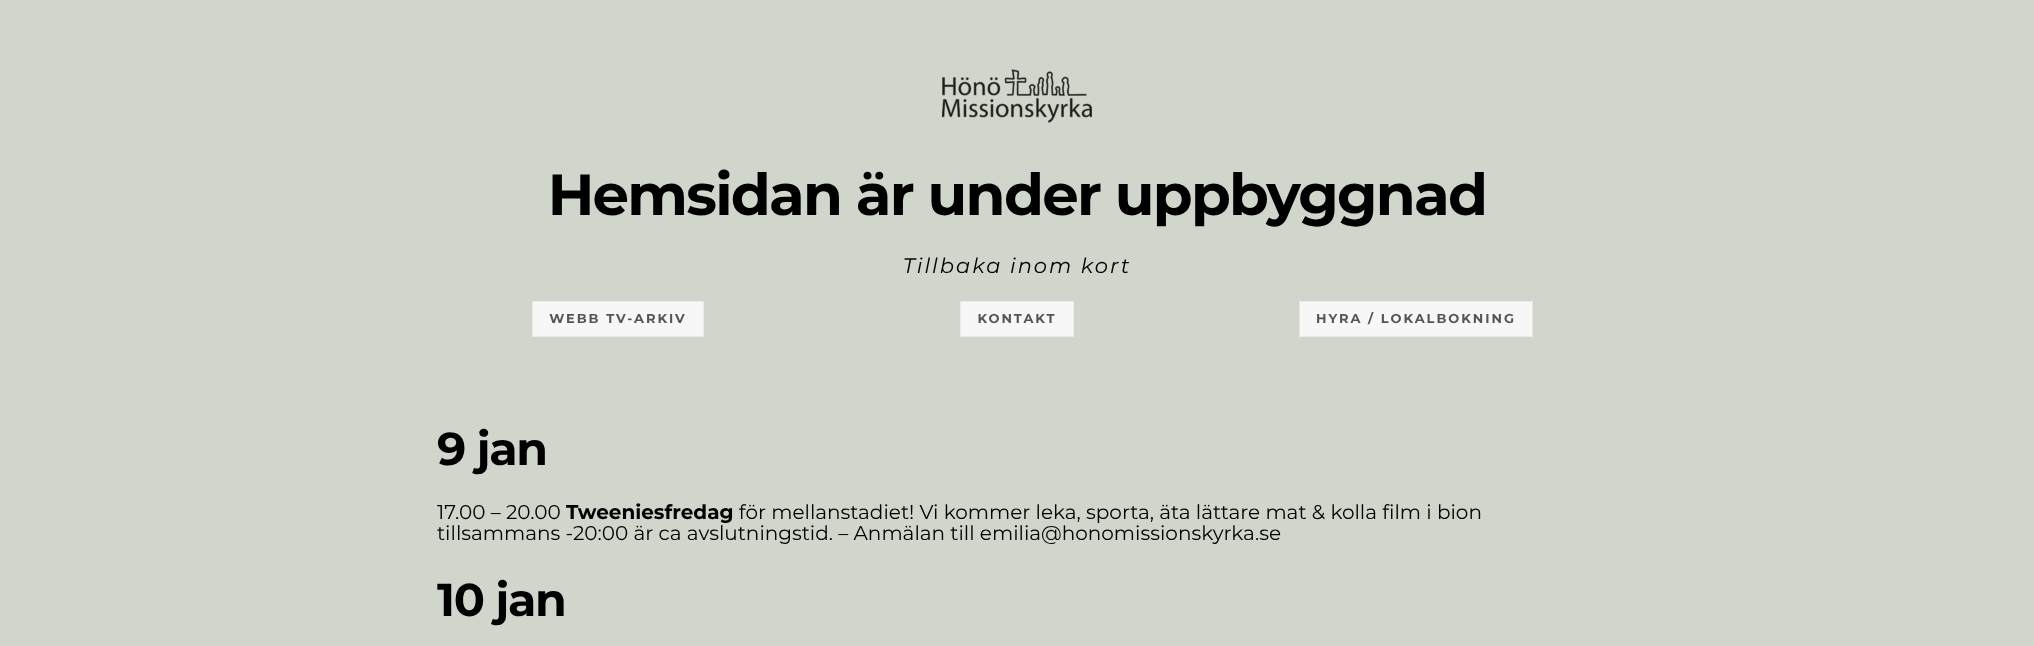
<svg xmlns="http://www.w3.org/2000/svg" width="2034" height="646">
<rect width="100%" height="100%" fill="#fff"/>
<image x="0" y="0" width="2034" height="646" href="media/1.png"/>
</svg>
